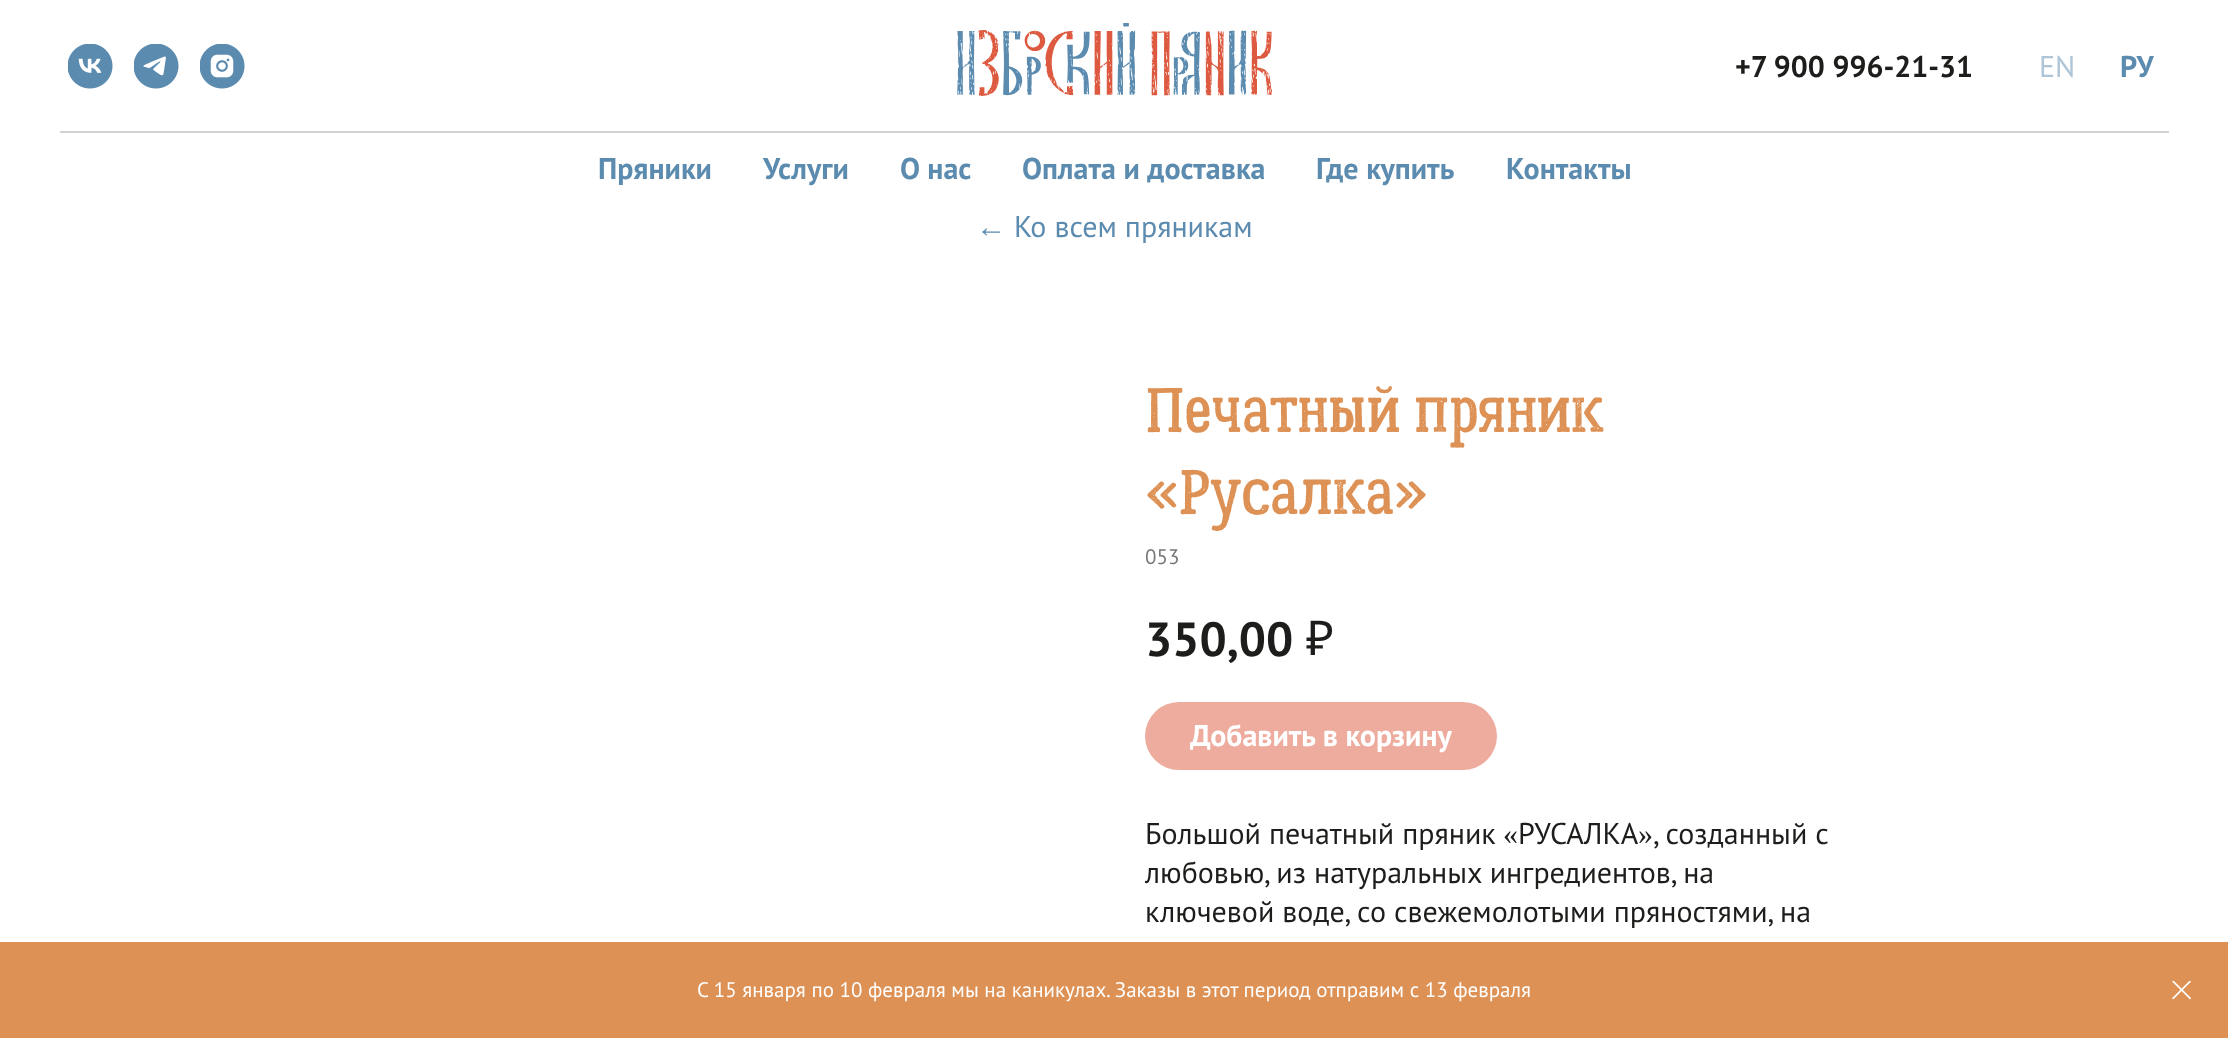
<svg xmlns="http://www.w3.org/2000/svg" width="2228" height="1038">
<rect width="100%" height="100%" fill="#fff"/>
<image x="957" y="23" width="315" height="73" href="media/1.png"/>
<image x="68" y="44" width="45" height="45" href="media/2.png"/>
<image x="134" y="44" width="45" height="45" href="media/3.png"/>
<image x="200" y="44" width="45" height="45" href="media/4.png"/>
<text x="1735" y="77" style="font-family:PT Sans;font-size:30px;font-weight:bold;fill:#1d1d1b">+7 900 996-21-31</text>
<text x="2039" y="77" style="font-family:PT Sans;font-size:30px;fill:#aec5d8">EN</text>
<text x="2120" y="77" style="font-family:PT Sans;font-size:30px;font-weight:bold;fill:#5c8bb0">РУ</text>
<rect x="60" y="131" width="2109" height="2" fill="#d2d2d1"/>
<text x="598" y="179" style="font-family:PT Sans;font-size:30px;font-weight:bold;fill:#5c8bb0">Пряники</text>
<text x="763" y="179" style="font-family:PT Sans;font-size:30px;font-weight:bold;fill:#5c8bb0">Услуги</text>
<text x="900" y="179" style="font-family:PT Sans;font-size:30px;font-weight:bold;fill:#5c8bb0">О нас</text>
<text x="1022" y="179" style="font-family:PT Sans;font-size:30px;font-weight:bold;fill:#5c8bb0">Оплата и доставка</text>
<text x="1316" y="179" style="font-family:PT Sans;font-size:30px;font-weight:bold;fill:#5c8bb0">Где купить</text>
<text x="1506" y="179" style="font-family:PT Sans;font-size:30px;font-weight:bold;fill:#5c8bb0">Контакты</text>
<text x="976" y="237" style="font-family:Liberation Sans;font-size:30px;fill:#5c8bb0">←</text>
<text x="1014" y="237" style="font-family:PT Sans;font-size:30px;fill:#5c8bb0">Ко всем пряникам</text>
<text x="1145" y="432" style="font-family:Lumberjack;font-size:63px;fill:#dd9155">Печатный пряник</text>
<text x="1145" y="514" style="font-family:Lumberjack;font-size:63px;fill:#dd9155">«Русалка»</text>
<text x="1145" y="564" style="font-family:PT Sans;font-size:21px;fill:#777">053</text>
<text x="1145" y="656" style="font-family:PT Sans;font-size:48px;font-weight:bold;fill:#1d1d1b">350,00</text>
<text x="1306" y="655" style="font-family:Noto Sans;font-size:48px;fill:#1d1d1b">₽</text>
<rect x="1145" y="702" width="352" height="68" rx="34" fill="#eeac9f"/>
<text x="1190" y="746" style="font-family:PT Sans;font-size:30px;font-weight:bold;fill:#fff">Добавить в корзину</text>
<text x="1145" y="844" style="font-family:PT Sans;font-size:30px;fill:#1d1d1b">Большой печатный пряник</text>
<text x="1503" y="844" style="font-family:Liberation Serif;font-size:30px;fill:#1d1d1b">«</text>
<text x="1518" y="844" style="font-family:PT Sans;font-size:30px;fill:#1d1d1b">РУСАЛКА</text>
<text x="1638" y="844" style="font-family:Liberation Serif;font-size:30px;fill:#1d1d1b">»</text>
<text x="1653" y="844" style="font-family:PT Sans;font-size:30px;fill:#1d1d1b">, созданный с</text>
<text x="1145" y="883" style="font-family:PT Sans;font-size:30px;fill:#1d1d1b">любовью, из натуральных ингредиентов, на</text>
<text x="1145" y="922" style="font-family:PT Sans;font-size:30px;fill:#1d1d1b">ключевой воде, со свежемолотыми пряностями, на</text>
<rect y="942" width="2228" height="96" fill="#dd9155"/>
<text x="697" y="997" style="font-family:PT Sans;font-size:21px;fill:#fff">С 15 января по 10 февраля мы на каникулах. Заказы в этот период отправим с 13 февраля</text>
<image x="2172" y="981" width="20" height="19" href="media/5.png"/>
</svg>
